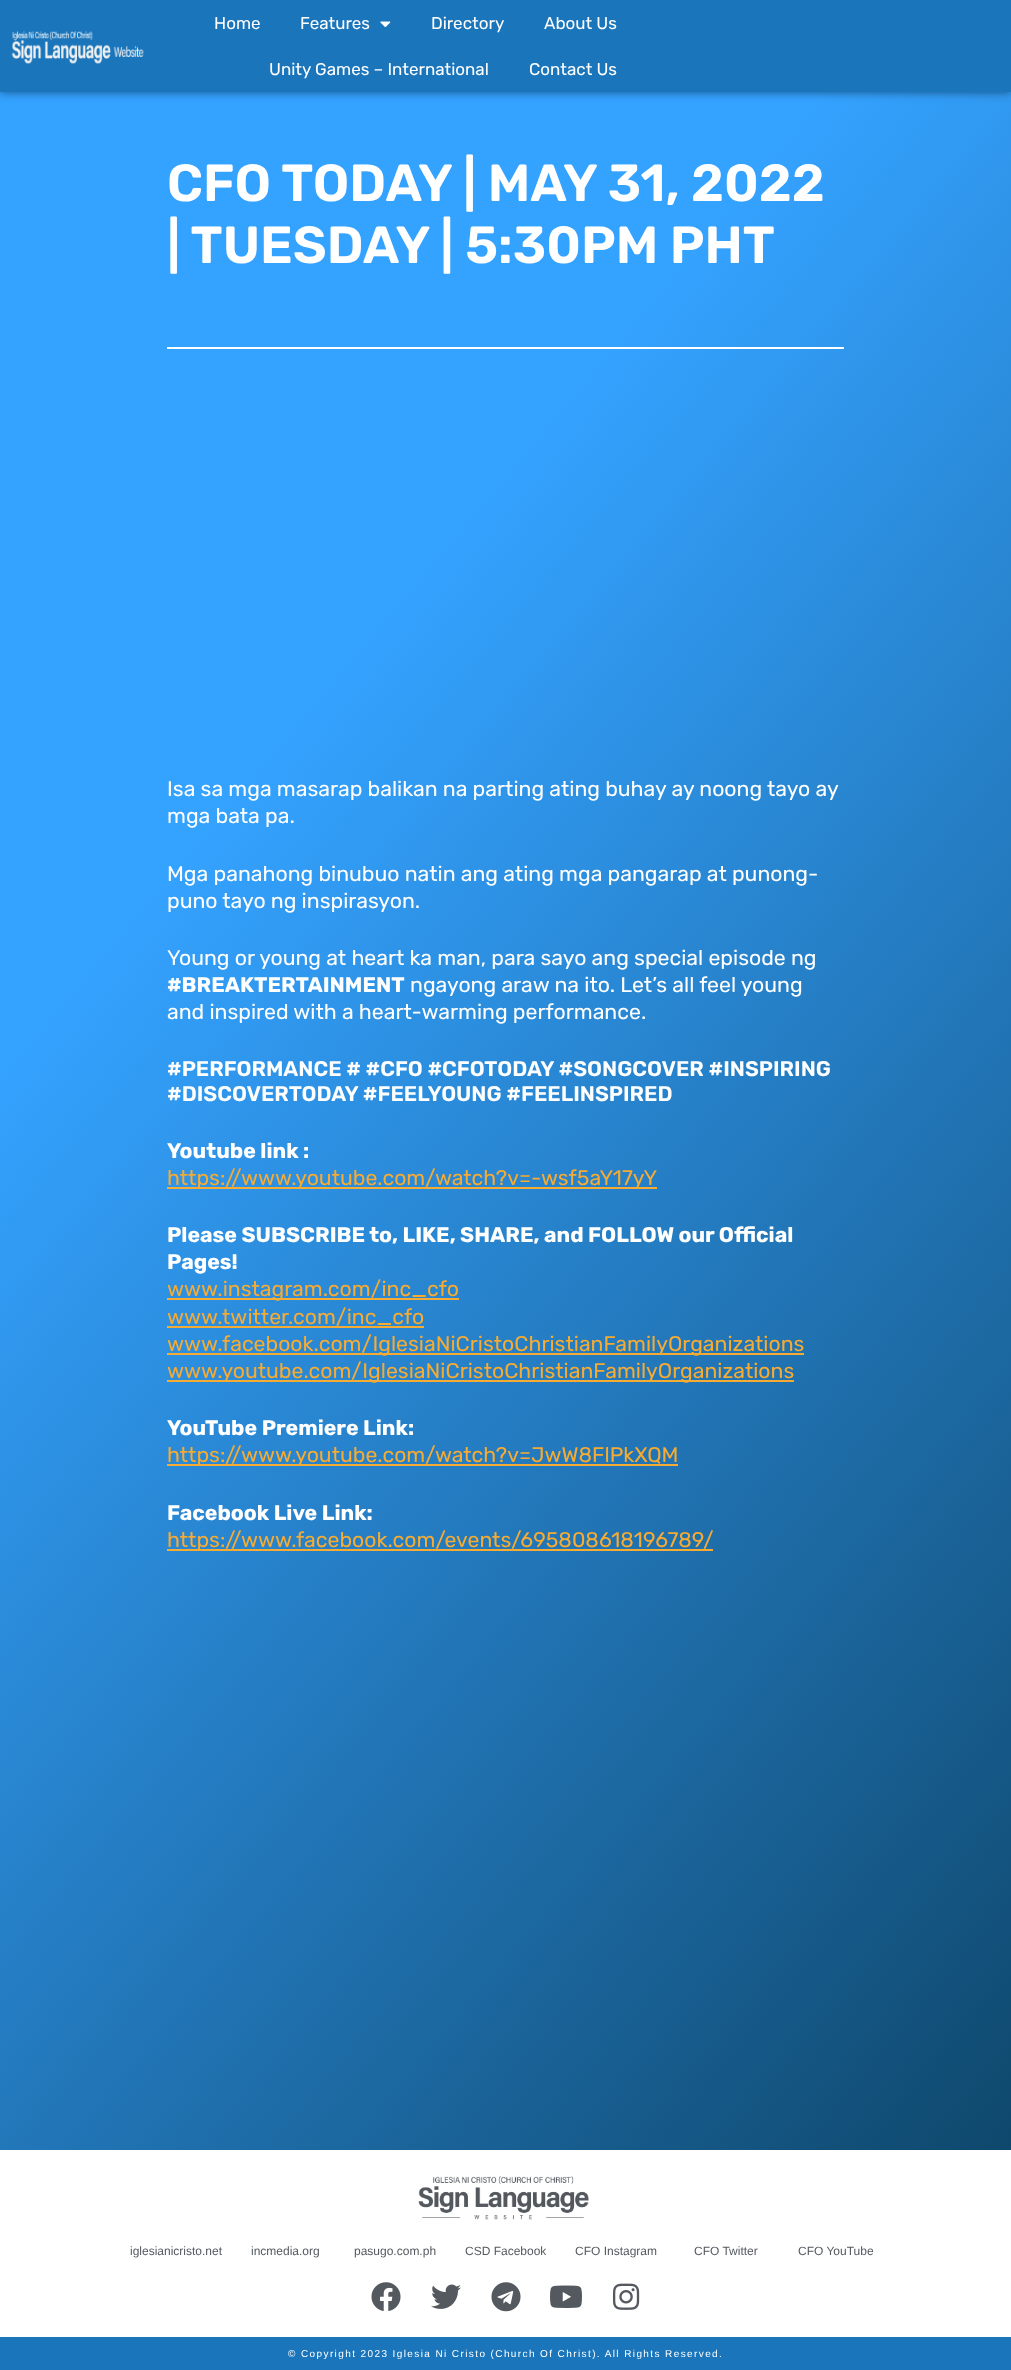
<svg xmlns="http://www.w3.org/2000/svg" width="1011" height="2370">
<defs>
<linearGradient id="g1" gradientUnits="userSpaceOnUse" x1="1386" y1="1924" x2="-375" y2="446"><stop offset="0" stop-color="#0b3f5e"/><stop offset="0.7" stop-color="#34a2ff"/></linearGradient>
</defs>
<rect width="100%" height="100%" fill="#fff"/>
<rect y="92" width="1011" height="2058" fill="url(#g1)"/>
<rect width="1011" height="92" fill="#00000080" filter="blur(5px)"/>
<rect width="1011" height="92" fill="#1a75bb"/>
<image x="11" y="31" width="133" height="33" href="media/1.png"/>
<text x="214" y="29" style="font-family:Rubik;font-size:17px;fill:#fff">Home</text>
<text x="300" y="29" style="font-family:Rubik;font-size:17px;fill:#fff">Features</text>
<image x="380" y="21" width="11" height="7" href="media/2.png"/>
<text x="431" y="29" style="font-family:Rubik;font-size:17px;fill:#fff">Directory</text>
<text x="544" y="29" style="font-family:Rubik;font-size:17px;fill:#fff">About Us</text>
<text x="269" y="75" style="font-family:Rubik;font-size:17px;fill:#fff">Unity Games – International</text>
<text x="529" y="75" style="font-family:Rubik;font-size:17px;fill:#fff">Contact Us</text>
<text x="167" y="201" style="font-family:Rubik;font-size:52px;font-weight:600;fill:#fff">CFO TODAY | MAY 31, 2022</text>
<text x="167" y="263" style="font-family:Rubik;font-size:52px;font-weight:600;fill:#fff">| TUESDAY | 5:30PM PHT</text>
<rect x="167" y="347" width="677" height="2" fill="#fff"/>
<text x="167" y="796" style="font-family:Rubik;font-size:21.25px;fill:#fff">Isa sa mga masarap balikan na parting ating buhay ay noong tayo ay</text>
<text x="167" y="823" style="font-family:Rubik;font-size:21.25px;fill:#fff">mga bata pa.</text>
<text x="167" y="881" style="font-family:Rubik;font-size:21.25px;fill:#fff">Mga panahong binubuo natin ang ating mga pangarap at punong-</text>
<text x="167" y="908" style="font-family:Rubik;font-size:21.25px;fill:#fff">puno tayo ng inspirasyon.</text>
<text x="167" y="965" style="font-family:Rubik;font-size:21.25px;fill:#fff">Young or young at heart ka man, para sayo ang special episode ng</text>
<text x="167" y="992" style="font-family:Rubik;font-size:21.25px;font-weight:bold;fill:#fff">#BREAKTERTAINMENT</text>
<text x="410" y="992" style="font-family:Rubik;font-size:21.25px;fill:#fff">ngayong araw na ito. Let’s all feel young</text>
<text x="167" y="1019" style="font-family:Rubik;font-size:21.25px;fill:#fff">and inspired with a heart-warming performance.</text>
<text x="167" y="1076" style="font-family:Rubik;font-size:21.25px;font-weight:600;fill:#fff">#PERFORMANCE # #CFO #CFOTODAY #SONGCOVER #INSPIRING</text>
<text x="167" y="1101" style="font-family:Rubik;font-size:21.25px;font-weight:600;fill:#fff">#DISCOVERTODAY #FEELYOUNG #FEELINSPIRED</text>
<text x="167" y="1158" style="font-family:Rubik;font-size:21.25px;font-weight:bold;fill:#fff">Youtube link :</text>
<rect x="167" y="1187" width="490" height="2" fill="#f6ab32"/>
<text x="167" y="1185" style="font-family:Rubik;font-size:21.25px;fill:#f6ab32">https://www.youtube.com/watch?v=-wsf5aY17yY</text>
<text x="167" y="1242" style="font-family:Rubik;font-size:21.25px;font-weight:bold;fill:#fff">Please SUBSCRIBE to, LIKE, SHARE, and FOLLOW our Official</text>
<text x="167" y="1269" style="font-family:Rubik;font-size:21.25px;font-weight:bold;fill:#fff">Pages!</text>
<rect x="167" y="1298" width="292" height="2" fill="#f6ab32"/>
<text x="167" y="1296" style="font-family:Rubik;font-size:21.25px;fill:#f6ab32">www.instagram.com/inc_cfo</text>
<text x="167" y="1324" style="font-family:Rubik;font-size:21.25px;fill:#f6ab32">www.twitter.com/inc_cfo</text>
<rect x="167" y="1326" width="257" height="2" fill="#f6ab32"/>
<rect x="167" y="1353" width="637" height="2" fill="#f6ab32"/>
<text x="167" y="1351" style="font-family:Rubik;font-size:21.25px;fill:#f6ab32">www.facebook.com/IglesiaNiCristoChristianFamilyOrganizations</text>
<rect x="167" y="1380" width="627" height="2" fill="#f6ab32"/>
<text x="167" y="1378" style="font-family:Rubik;font-size:21.25px;fill:#f6ab32">www.youtube.com/IglesiaNiCristoChristianFamilyOrganizations</text>
<text x="167" y="1435" style="font-family:Rubik;font-size:21.25px;font-weight:bold;fill:#fff">YouTube Premiere Link:</text>
<rect x="167" y="1464" width="511" height="2" fill="#f6ab32"/>
<text x="167" y="1462" style="font-family:Rubik;font-size:21.25px;fill:#f6ab32">https://www.youtube.com/watch?v=JwW8FlPkXQM</text>
<text x="167" y="1520" style="font-family:Rubik;font-size:21.25px;font-weight:bold;fill:#fff">Facebook Live Link:</text>
<rect x="167" y="1549" width="546" height="2" fill="#f6ab32"/>
<text x="167" y="1547" style="font-family:Rubik;font-size:21.25px;fill:#f6ab32">https://www.facebook.com/events/695808618196789/</text>
<image x="418" y="2176" width="171" height="44" href="media/3.png"/>
<text x="130" y="2255" style="font-family:Liberation Sans;font-size:12px;fill:#54595f">iglesianicristo.net</text>
<text x="251" y="2255" style="font-family:Liberation Sans;font-size:12px;fill:#54595f">incmedia.org</text>
<text x="354" y="2255" style="font-family:Liberation Sans;font-size:12px;fill:#54595f">pasugo.com.ph</text>
<text x="465" y="2255" style="font-family:Liberation Sans;font-size:12px;fill:#54595f">CSD Facebook</text>
<text x="575" y="2255" style="font-family:Liberation Sans;font-size:12px;fill:#54595f">CFO Instagram</text>
<text x="694" y="2255" style="font-family:Liberation Sans;font-size:12px;fill:#54595f">CFO Twitter</text>
<text x="798" y="2255" style="font-family:Liberation Sans;font-size:12px;fill:#54595f">CFO YouTube</text>
<image x="371" y="2282" width="30" height="29" href="media/4.png"/>
<image x="431" y="2284" width="30" height="25" href="media/5.png"/>
<image x="491" y="2282" width="30" height="30" href="media/6.png"/>
<image x="550" y="2285" width="32" height="23" href="media/7.png"/>
<image x="612" y="2283" width="28" height="27" href="media/8.png"/>
<rect y="2337" width="1011" height="33" fill="#1a75bb"/>
<text x="288" y="2357" style="font-family:Liberation Sans;font-size:10px;letter-spacing:1.4px;fill:#fff">© Copyright 2023 Iglesia Ni Cristo (Church Of Christ). All Rights Reserved.</text>
</svg>
